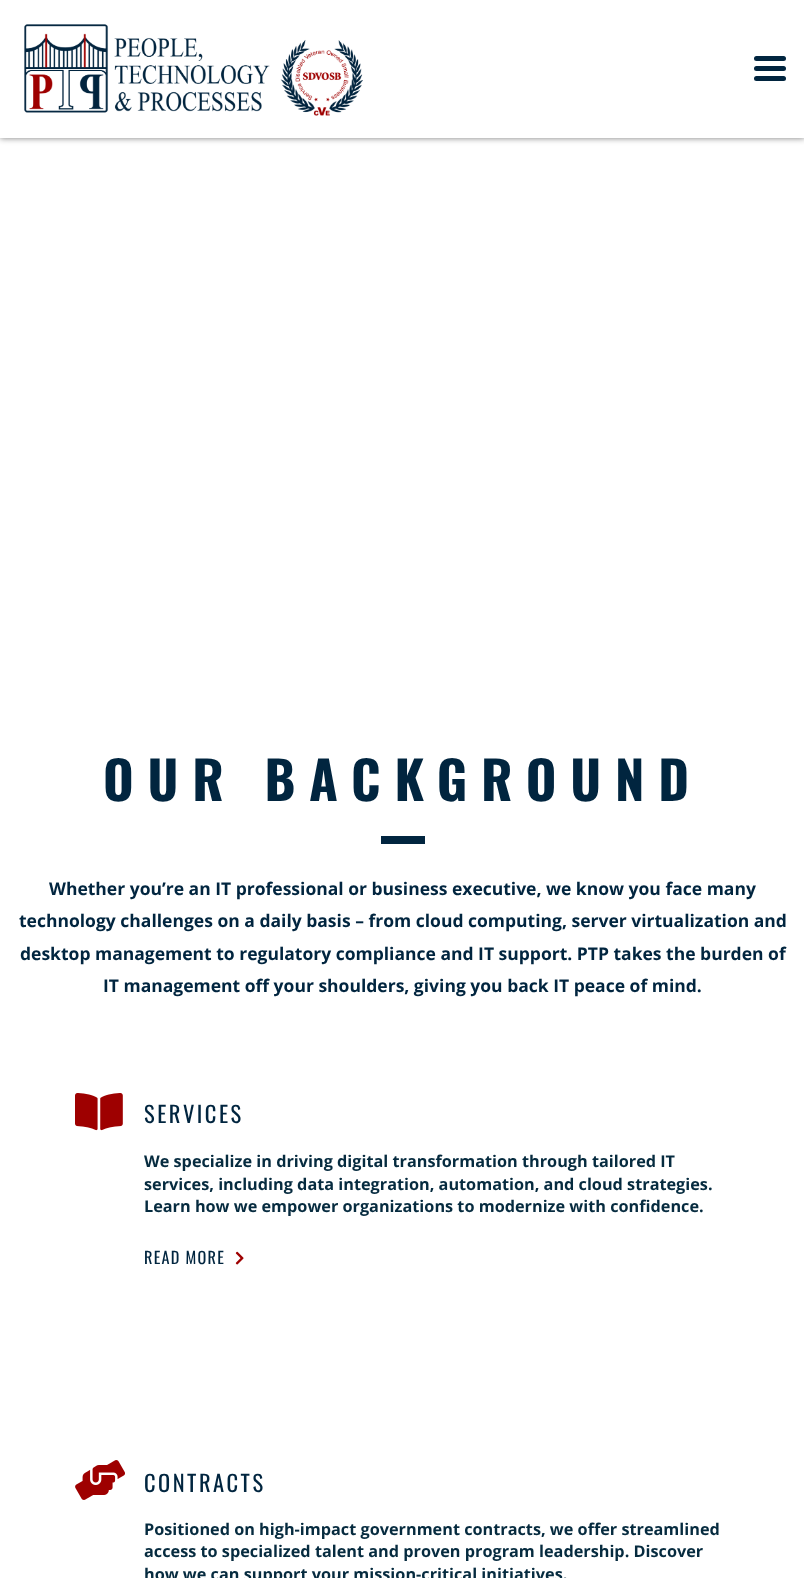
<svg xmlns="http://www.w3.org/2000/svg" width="804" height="1578">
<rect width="100%" height="100%" fill="#fff"/>
<rect width="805" height="138" fill="#00000085" filter="blur(3px)"/>
<rect width="804" height="138" fill="#fff"/>
<image x="24" y="24" width="339" height="92" href="media/1.png"/>
<rect x="754" y="66" width="32" height="5" rx="2.5" fill="#01253f"/>
<rect x="754" y="56" width="32" height="5" rx="2.5" fill="#01253f"/>
<rect x="754" y="76" width="32" height="5" rx="2.5" fill="#01253f"/>
<text x="103" y="801" style="font-family:Oswald;font-size:52.5px;font-weight:bold;letter-spacing:13.75px;fill:#01253f">OUR BACKGROUND</text>
<rect x="381" y="836" width="44" height="8" fill="#01253f"/>
<text x="49" y="895" style="font-family:Open Sans;font-size:17.5px;font-weight:bold;fill:#01253f">Whether you’re an IT professional or business executive, we know you face many</text>
<text x="19" y="927" style="font-family:Open Sans;font-size:17.5px;font-weight:bold;fill:#01253f">technology challenges on a daily basis – from cloud computing, server virtualization and</text>
<text x="20" y="960" style="font-family:Open Sans;font-size:17.5px;font-weight:bold;fill:#01253f">desktop management to regulatory compliance and IT support. PTP takes the burden of</text>
<text x="103" y="992" style="font-family:Open Sans;font-size:17.5px;font-weight:bold;fill:#01253f">IT management off your shoulders, giving you back IT peace of mind.</text>
<image x="75" y="1093" width="48" height="38" href="media/2.png"/>
<text x="144" y="1123" style="font-family:Oswald;font-size:22.5px;letter-spacing:2.5px;fill:#01253f">SERVICES</text>
<text x="144" y="1167" style="font-family:Open Sans;font-size:16.25px;font-weight:bold;fill:#062b3f">We specialize in driving digital transformation through tailored IT</text>
<text x="144" y="1190" style="font-family:Open Sans;font-size:16.25px;font-weight:bold;fill:#062b3f">services, including data integration, automation, and cloud strategies.</text>
<text x="144" y="1212" style="font-family:Open Sans;font-size:16.25px;font-weight:bold;fill:#062b3f">Learn how we empower organizations to modernize with confidence.</text>
<text x="144" y="1264" style="font-family:Oswald;font-size:16.25px;letter-spacing:1.25px;fill:#01253f">READ MORE</text>
<image x="235" y="1251" width="9" height="14" href="media/3.png"/>
<image x="75" y="1460" width="50" height="40" href="media/4.png"/>
<text x="144" y="1492" style="font-family:Oswald;font-size:22.5px;letter-spacing:2.5px;fill:#01253f">CONTRACTS</text>
<text x="144" y="1535" style="font-family:Open Sans;font-size:16.25px;font-weight:bold;fill:#062b3f">Positioned on high-impact government contracts, we offer streamlined</text>
<text x="144" y="1557" style="font-family:Open Sans;font-size:16.25px;font-weight:bold;fill:#062b3f">access to specialized talent and proven program leadership. Discover</text>
<text x="144" y="1580" style="font-family:Open Sans;font-size:16.25px;font-weight:bold;fill:#062b3f">how we can support your mission-critical initiatives.</text>
</svg>
